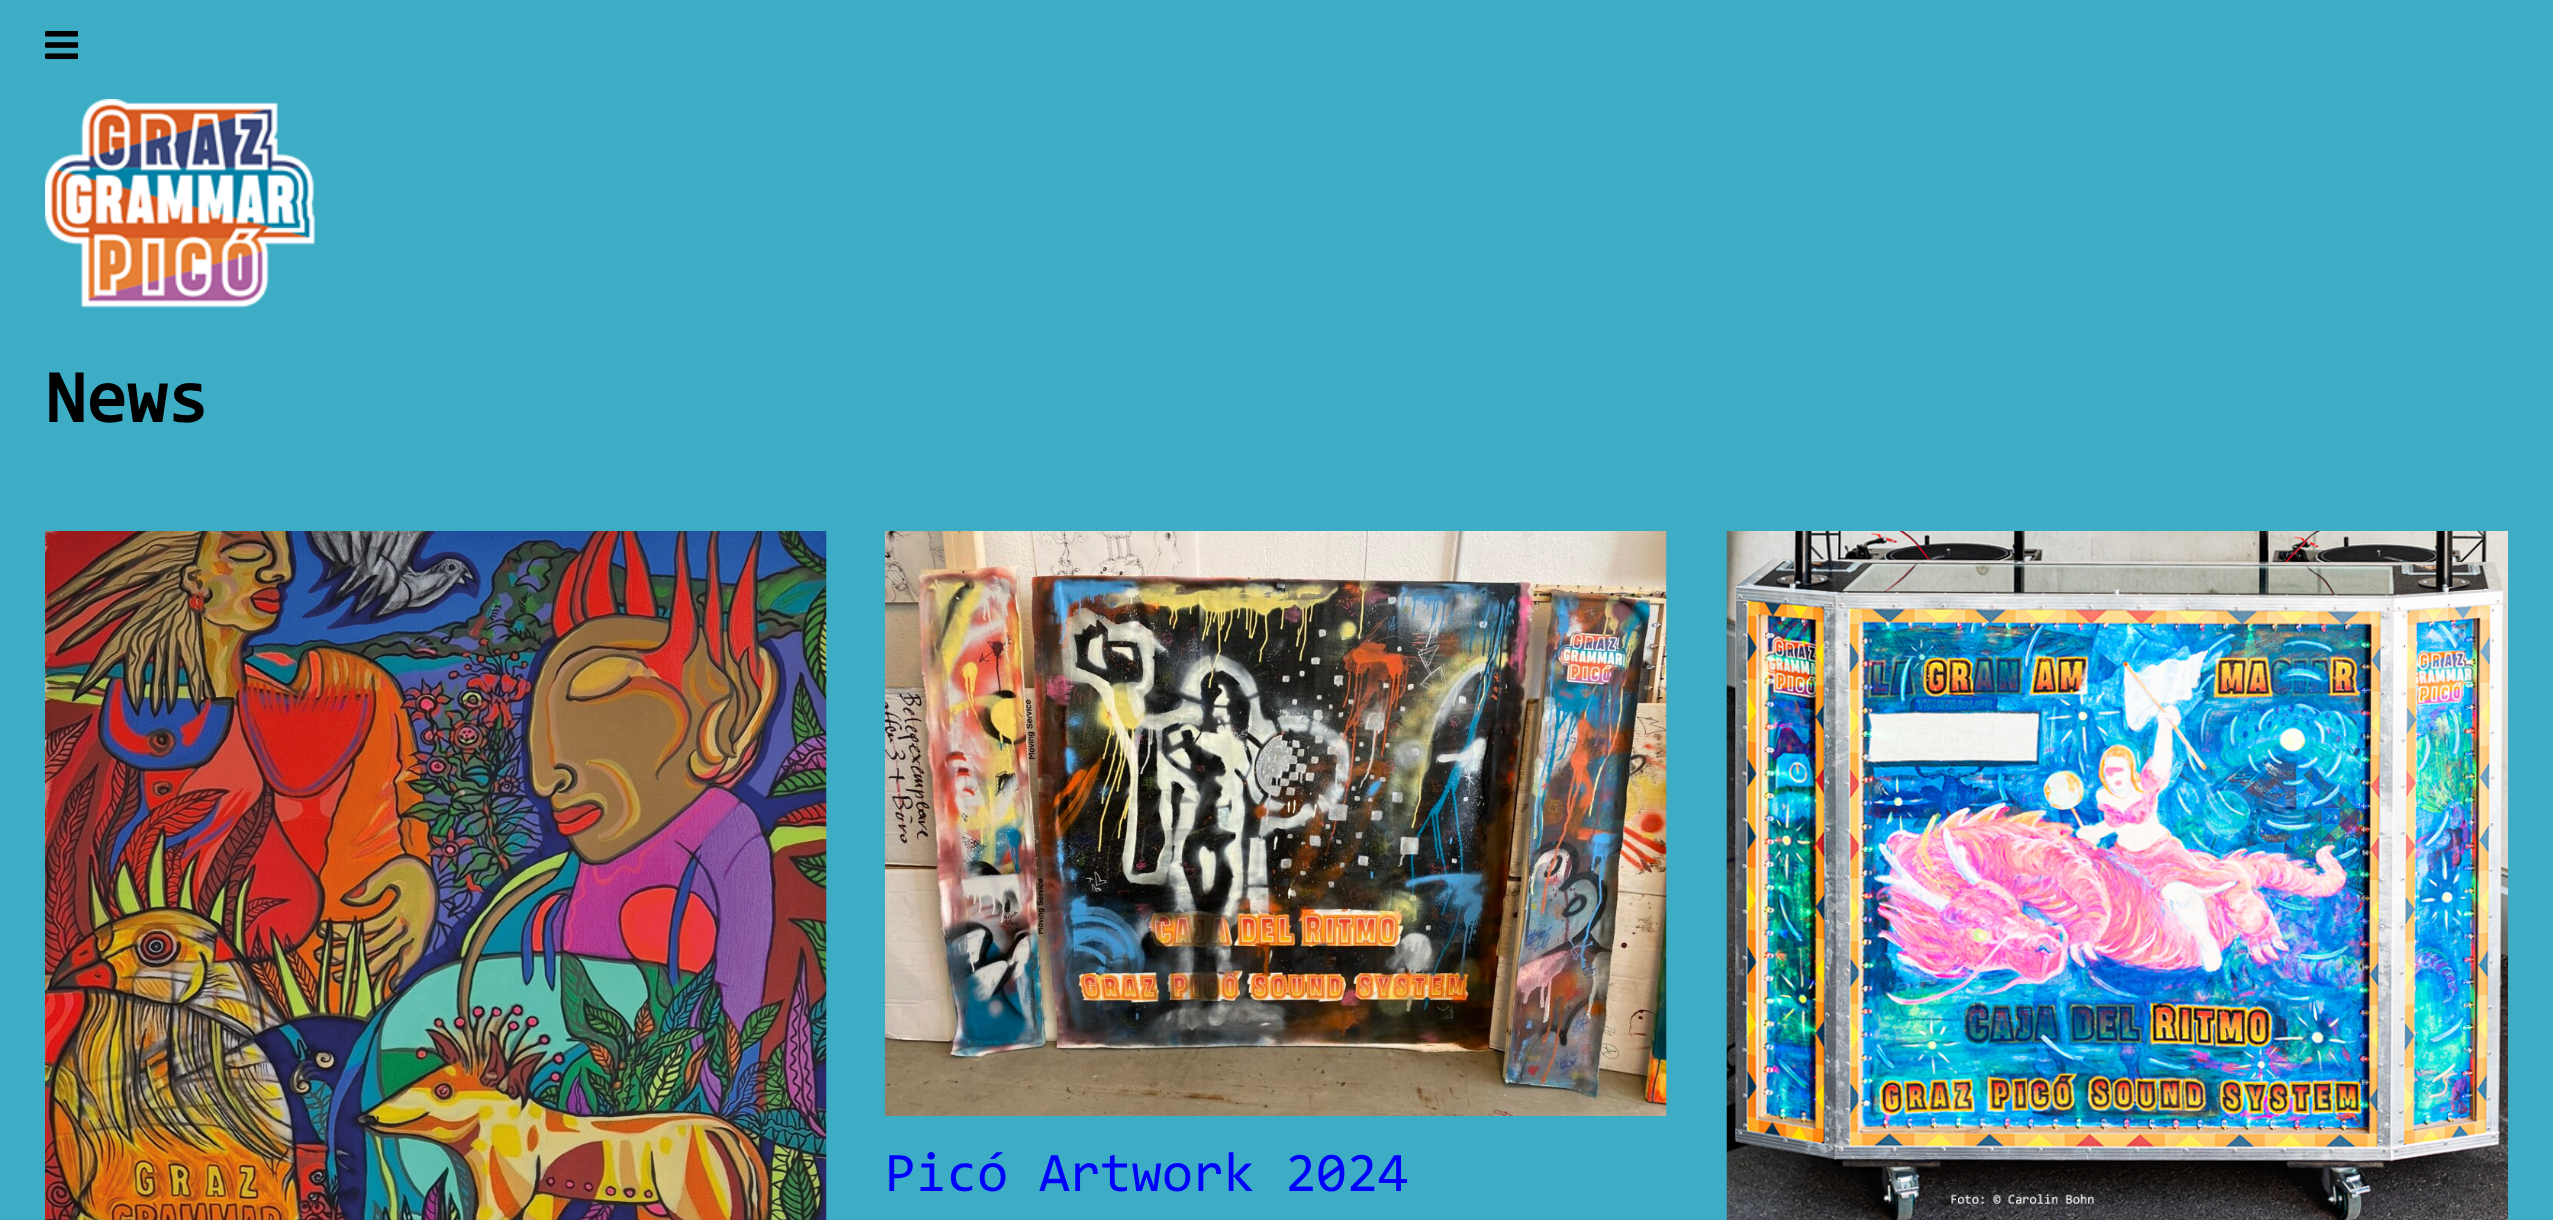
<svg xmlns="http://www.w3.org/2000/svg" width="2553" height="1220">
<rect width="100%" height="100%" fill="#3dadc6"/>
<image x="45" y="31" width="33" height="28" href="media/1.png"/>
<image x="45" y="99" width="270" height="209" href="media/2.png"/>
<text x="45" y="422" style="font-family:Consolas;font-size:74px;font-weight:bold;fill:#000">News</text>
<image x="45" y="531" width="782" height="689" href="media/3.png"/>
<image x="885" y="531" width="782" height="585" href="media/4.png"/>
<text x="885" y="1191" style="font-family:Consolas;font-size:56px;fill:#00f">Picó Artwork 2024</text>
<image x="1726" y="531" width="782" height="689" href="media/5.png"/>
</svg>
